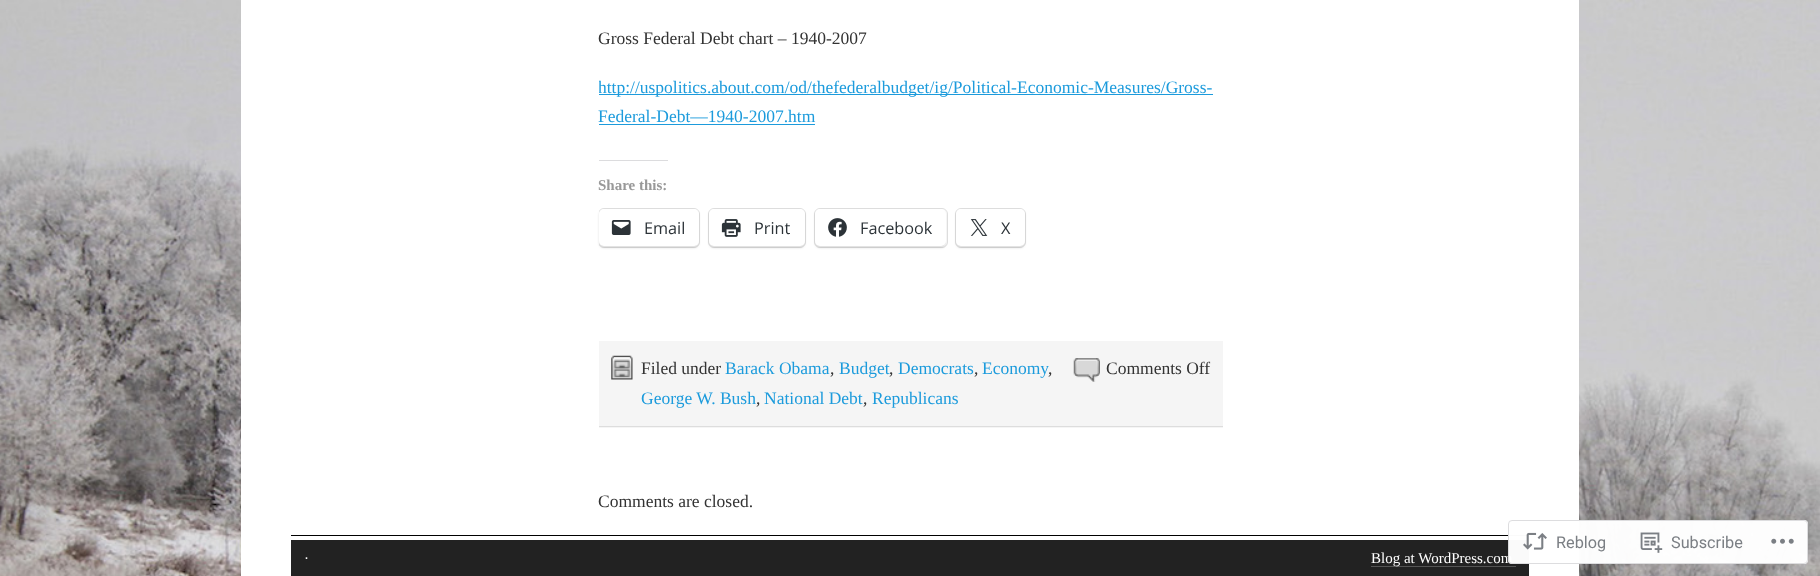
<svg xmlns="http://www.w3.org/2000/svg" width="1820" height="576">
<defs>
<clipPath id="clip1"><rect x="599" width="624" height="535"/></clipPath>
</defs>
<rect width="100%" height="100%" fill="#fff"/>
<image x="0" y="0" width="1820" height="576" href="media/1.png"/>
<rect x="241" width="1338" height="576" fill="#fff"/>
<text x="598" y="44" style="font-family:Liberation Serif;font-size:17.5px;fill:#333">Gross Federal Debt chart – 1940-2007</text>
<rect x="599" y="94" width="614" height="1" fill="#1c9bdc"/>
<g clip-path="url(#clip1)">
<text x="598" y="93" style="font-family:Liberation Serif;font-size:17.5px;fill:#1c9bdc">http://uspolitics.about.com/od/thefederalbudget/ig/Political-Economic-Measures/Gross-</text>
</g>
<text x="598" y="122" style="font-family:Liberation Serif;font-size:17.5px;fill:#1c9bdc">Federal-Debt—1940-2007.htm</text>
<rect x="599" y="124" width="216" height="1" fill="#1c9bdc"/>
<rect x="599" y="160" width="69" height="1" fill="#dcdcde"/>
<text x="598" y="190" style="font-family:Liberation Serif;font-size:15px;font-weight:bold;fill:#999">Share this:</text>
<g clip-path="url(#clip1)">
<rect x="598.5" y="208.5" width="101" height="39" rx="5.5" fill="none" stroke="#e0e0e0"/>
</g>
<rect x="599" y="210" width="100" height="38" rx="5" fill="#0000001f" filter="blur(1px)"/>
<rect x="599" y="209" width="100" height="37" rx="5" fill="#fff"/>
<image x="611" y="220" width="20" height="15" href="media/2.png"/>
<text x="644" y="234" style="font-family:Open Sans;font-size:16.25px;fill:#2c3338">Email</text>
<rect x="708.5" y="208.5" width="97" height="39" rx="5.5" fill="none" stroke="#e0e0e0"/>
<rect x="709" y="210" width="96" height="38" rx="5" fill="#0000001f" filter="blur(1px)"/>
<rect x="709" y="209" width="96" height="37" rx="5" fill="#fff"/>
<image x="721" y="219" width="20" height="18" href="media/3.png"/>
<text x="754" y="234" style="font-family:Open Sans;font-size:16.25px;fill:#2c3338">Print</text>
<rect x="814.5" y="208.5" width="133" height="39" rx="5.5" fill="none" stroke="#e0e0e0"/>
<rect x="815" y="210" width="131" height="38" rx="5" fill="#0000001f" filter="blur(1px)"/>
<rect x="815" y="209" width="131" height="37" rx="5" fill="#fff"/>
<image x="828" y="218" width="19" height="19" href="media/4.png"/>
<text x="860" y="234" style="font-family:Open Sans;font-size:16.25px;fill:#2c3338">Facebook</text>
<rect x="955.5" y="208.5" width="70" height="39" rx="5.5" fill="none" stroke="#e0e0e0"/>
<rect x="956" y="210" width="69" height="38" rx="5" fill="#0000001f" filter="blur(1px)"/>
<rect x="956" y="209" width="69" height="37" rx="5" fill="#fff"/>
<image x="970" y="219" width="18" height="17" href="media/5.png"/>
<text x="1001" y="234" style="font-family:Open Sans;font-size:16.25px;fill:#2c3338">X</text>
<rect x="599" y="341" width="624" height="87" fill="#f5f5f5"/>
<rect x="599" y="426" width="624" height="1" fill="#ddd"/>
<image x="611" y="355" width="22" height="25" href="media/6.png"/>
<text x="641" y="374" style="font-family:Liberation Serif;font-size:17.5px;fill:#333">Filed under</text>
<text x="725" y="374" style="font-family:Liberation Serif;font-size:17.5px;fill:#1c9bdc">Barack Obama</text>
<text x="830" y="374" style="font-family:Liberation Serif;font-size:17.5px;fill:#333">,</text>
<text x="839" y="374" style="font-family:Liberation Serif;font-size:17.5px;fill:#1c9bdc">Budget</text>
<text x="889" y="374" style="font-family:Liberation Serif;font-size:17.5px;fill:#333">,</text>
<text x="898" y="374" style="font-family:Liberation Serif;font-size:17.5px;fill:#1c9bdc">Democrats</text>
<text x="974" y="374" style="font-family:Liberation Serif;font-size:17.5px;fill:#333">,</text>
<text x="982" y="374" style="font-family:Liberation Serif;font-size:17.5px;fill:#1c9bdc">Economy</text>
<text x="1048" y="374" style="font-family:Liberation Serif;font-size:17.5px;fill:#333">,</text>
<text x="641" y="404" style="font-family:Liberation Serif;font-size:17.5px;fill:#1c9bdc">George W. Bush</text>
<text x="756" y="404" style="font-family:Liberation Serif;font-size:17.5px;fill:#333">,</text>
<text x="764" y="404" style="font-family:Liberation Serif;font-size:17.5px;fill:#1c9bdc">National Debt</text>
<text x="863" y="404" style="font-family:Liberation Serif;font-size:17.5px;fill:#333">,</text>
<text x="872" y="404" style="font-family:Liberation Serif;font-size:17.5px;fill:#1c9bdc">Republicans</text>
<image x="1073" y="358" width="27" height="24" href="media/7.png"/>
<text x="1106" y="374" style="font-family:Liberation Serif;font-size:17.5px;fill:#333">Comments Off</text>
<text x="598" y="507" style="font-family:Liberation Serif;font-size:17.5px;fill:#333">Comments are closed.</text>
<rect x="291" y="535" width="1238" height="1" fill="#000"/>
<rect x="291" y="540" width="1238" height="36" fill="#222"/>
<text x="304" y="563" style="font-family:Liberation Serif;font-size:15px;fill:#fff">·</text>
<rect x="1371" y="566" width="145" height="1" fill="#555"/>
<text x="1371" y="563" style="font-family:Liberation Serif;font-size:15px;fill:#fff">Blog at WordPress.com</text>
<rect x="1508" y="520" width="300" height="44" rx="4" fill="#fffffffa"/>
<rect x="1508.5" y="520.5" width="299" height="43" rx="3.5" fill="none" stroke="#dcdcdefa"/>
<image x="1523" y="532" width="24" height="18" href="media/8.png"/>
<text x="1556" y="548" style="font-family:Roboto;font-size:16.25px;fill:#7b7f84">Reblog</text>
<image x="1640" y="532" width="23" height="21" href="media/9.png"/>
<text x="1671" y="548" style="font-family:Roboto;font-size:16.25px;fill:#7b7f84">Subscribe</text>
<image x="1771" y="538" width="23" height="6" href="media/10.png"/>
</svg>
